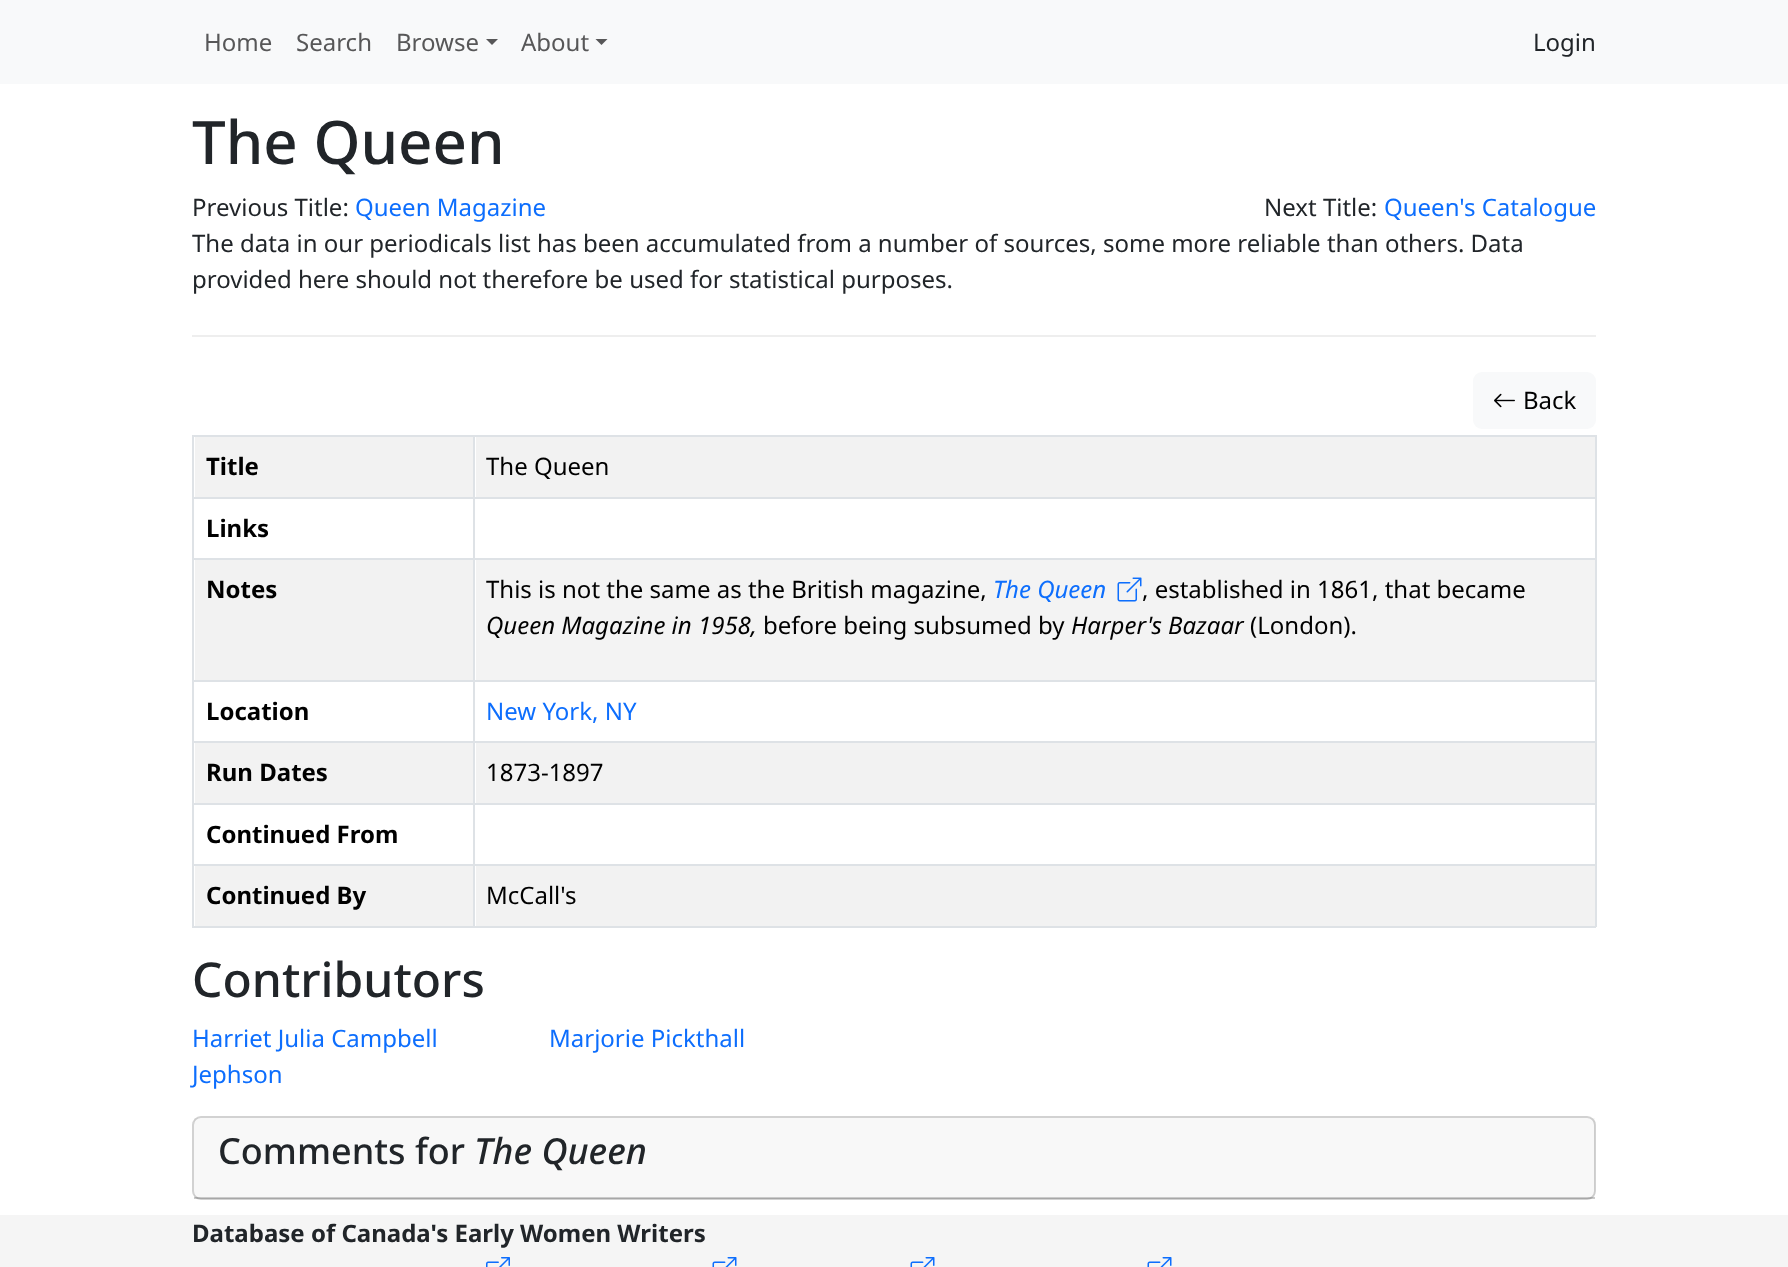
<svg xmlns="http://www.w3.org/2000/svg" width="1788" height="1267">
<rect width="100%" height="100%" fill="#fff"/>
<rect width="1788" height="84" fill="#f8f9fa"/>
<text x="204" y="51" style="font-family:Noto Sans;font-size:24px;fill:#575758">Home</text>
<text x="296" y="51" style="font-family:Noto Sans;font-size:24px;fill:#575758">Search</text>
<text x="396" y="51" style="font-family:Noto Sans;font-size:24px;fill:#575758">Browse</text>
<path d="M486 39h12l-6 6z" fill="#575758"/>
<text x="521" y="51" style="font-family:Noto Sans;font-size:24px;fill:#575758">About</text>
<path d="M595.5 39h12l-6 6z" fill="#575758"/>
<text x="1533" y="51" style="font-family:Noto Sans;font-size:24px;fill:#212529">Login</text>
<rect x="192" y="335" width="1404" height="2" fill="#eee"/>
<text x="192" y="164" style="font-family:Noto Sans;font-size:60px;font-weight:500;fill:#212529">The Queen</text>
<text x="192" y="216" style="font-family:Noto Sans;font-size:24px;fill:#212529">Previous Title:</text>
<text x="355" y="216" style="font-family:Noto Sans;font-size:24px;fill:#0d6efd">Queen Magazine</text>
<text x="1264" y="216" style="font-family:Noto Sans;font-size:24px;fill:#212529">Next Title:</text>
<text x="1384" y="216" style="font-family:Noto Sans;font-size:24px;fill:#0d6efd">Queen's Catalogue</text>
<text x="192" y="252" style="font-family:Noto Sans;font-size:24px;fill:#212529">The data in our periodicals list has been accumulated from a number of sources, some more reliable than others. Data</text>
<text x="192" y="288" style="font-family:Noto Sans;font-size:24px;fill:#212529">provided here should not therefore be used for statistical purposes.</text>
<rect x="1473" y="372" width="123" height="57" rx="9" fill="#f8f9fa"/>
<image x="1494" y="393" width="21" height="15" href="media/1.png"/>
<text x="1523" y="409" style="font-family:Noto Sans;font-size:24px;fill:#000">Back</text>
<rect x="192" y="435" width="1404" height="2" fill="#dee2e6"/>
<rect x="195" y="437" width="278" height="60" fill="#f2f2f2"/>
<text x="206" y="475" style="font-family:Noto Sans;font-size:24px;font-weight:bold;fill:#000">Title</text>
<rect x="476" y="437" width="1119" height="60" fill="#f2f2f2"/>
<text x="486" y="475" style="font-family:Noto Sans;font-size:24px;fill:#000">The Queen</text>
<rect x="192" y="497" width="1404" height="2" fill="#dee2e6"/>
<text x="206" y="537" style="font-family:Noto Sans;font-size:24px;font-weight:bold;fill:#000">Links</text>
<rect x="192" y="558" width="1404" height="2" fill="#dee2e6"/>
<rect x="195" y="560" width="278" height="120" fill="#f2f2f2"/>
<text x="206" y="598" style="font-family:Noto Sans;font-size:24px;font-weight:bold;fill:#000">Notes</text>
<rect x="476" y="560" width="1119" height="120" fill="#f3f3f3"/>
<text x="486" y="598" style="font-family:Noto Sans;font-size:24px;fill:#000">This is not the same as the British magazine,</text>
<text x="993" y="598" style="font-family:Noto Sans;font-size:24px;font-style:italic;fill:#0d6efd">The Queen</text>
<image x="1117" y="577" width="25" height="25" href="media/2.png"/>
<text x="1142" y="598" style="font-family:Noto Sans;font-size:24px;fill:#000">, established in 1861, that became</text>
<text x="486" y="634" style="font-family:Noto Sans;font-size:24px;font-style:italic;fill:#000">Queen Magazine in 1958,</text>
<text x="763" y="634" style="font-family:Noto Sans;font-size:24px;fill:#000">before being subsumed by</text>
<text x="1071" y="634" style="font-family:Noto Sans;font-size:24px;font-style:italic;fill:#000">Harper's Bazaar</text>
<text x="1250" y="634" style="font-family:Noto Sans;font-size:24px;fill:#000">(London).</text>
<rect x="192" y="680" width="1404" height="2" fill="#dee2e6"/>
<text x="206" y="720" style="font-family:Noto Sans;font-size:24px;font-weight:bold;fill:#000">Location</text>
<text x="486" y="720" style="font-family:Noto Sans;font-size:24px;fill:#0d6efd">New York, NY</text>
<rect x="192" y="741" width="1404" height="2" fill="#dee2e6"/>
<rect x="195" y="743" width="278" height="60" fill="#f2f2f2"/>
<text x="206" y="781" style="font-family:Noto Sans;font-size:24px;font-weight:bold;fill:#000">Run Dates</text>
<rect x="476" y="743" width="1119" height="60" fill="#f2f2f2"/>
<text x="486" y="781" style="font-family:Noto Sans;font-size:24px;fill:#000">1873-1897</text>
<rect x="192" y="803" width="1404" height="2" fill="#dee2e6"/>
<text x="206" y="843" style="font-family:Noto Sans;font-size:24px;font-weight:bold;fill:#000">Continued From</text>
<rect x="192" y="864" width="1404" height="2" fill="#dee2e6"/>
<rect x="192" y="926" width="1404" height="2" fill="#dee2e6"/>
<rect x="195" y="866" width="278" height="60" fill="#f2f2f2"/>
<rect x="192" y="435" width="2" height="492" fill="#dee2e6"/>
<text x="206" y="904" style="font-family:Noto Sans;font-size:24px;font-weight:bold;fill:#000">Continued By</text>
<rect x="476" y="866" width="1119" height="60" fill="#f2f2f2"/>
<rect x="1595" y="435" width="2" height="492" fill="#dee2e6"/>
<rect x="473" y="435" width="2" height="492" fill="#dee2e6"/>
<text x="486" y="904" style="font-family:Noto Sans;font-size:24px;fill:#000">McCall's</text>
<text x="192" y="997" style="font-family:Noto Sans;font-size:48px;font-weight:500;fill:#212529">Contributors</text>
<text x="192" y="1047" style="font-family:Noto Sans;font-size:24px;fill:#0d6efd">Harriet Julia Campbell</text>
<text x="192" y="1083" style="font-family:Noto Sans;font-size:24px;fill:#0d6efd">Jephson</text>
<text x="549" y="1047" style="font-family:Noto Sans;font-size:24px;fill:#0d6efd">Marjorie Pickthall</text>
<rect x="193" y="1117" width="1402" height="82" rx="8" fill="none" stroke="#d2d2d2" stroke-width="2"/>
<rect x="194" y="1118" width="1401" height="81" fill="#21252908"/>
<rect x="194" y="1197" width="1401" height="2" fill="#0000002e"/>
<text x="218" y="1164" style="font-family:Noto Sans;font-size:36px;font-weight:500;fill:#212529">Comments for</text>
<text x="474" y="1164" style="font-family:Noto Sans;font-size:36px;font-weight:500;font-style:italic;fill:#212529">The Queen</text>
<rect y="1215" width="1788" height="52" fill="#f5f5f5"/>
<text x="192" y="1242" style="font-family:Noto Sans;font-size:24px;font-weight:bold;fill:#212529">Database of Canada's Early Women Writers</text>
<image x="486" y="1257" width="24" height="10" href="media/3.png"/>
<image x="712" y="1257" width="25" height="10" href="media/4.png"/>
<image x="910" y="1257" width="25" height="10" href="media/4.png"/>
<image x="1147" y="1257" width="25" height="10" href="media/4.png"/>
</svg>
